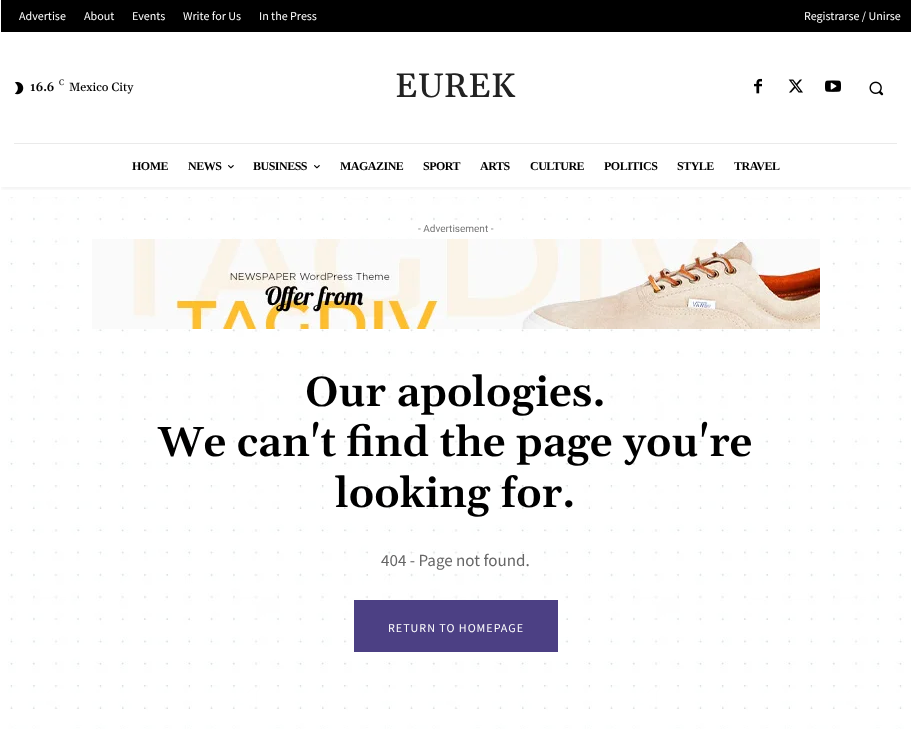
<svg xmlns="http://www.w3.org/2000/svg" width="911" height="729">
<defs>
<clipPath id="clip1"><rect x="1" y="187" width="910" height="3"/></clipPath>
</defs>
<rect width="100%" height="100%" fill="#fff"/>
<rect x="1" width="910" height="32" fill="#000"/>
<text x="19" y="20" style="font-family:Source Sans Pro;font-size:12px;fill:#fff">Advertise</text>
<text x="84" y="20" style="font-family:Source Sans Pro;font-size:12px;fill:#fff">About</text>
<text x="132" y="20" style="font-family:Source Sans Pro;font-size:12px;fill:#fff">Events</text>
<text x="183" y="20" style="font-family:Source Sans Pro;font-size:12px;fill:#fff">Write for Us</text>
<text x="259" y="20" style="font-family:Source Sans Pro;font-size:12px;fill:#fff">In the Press</text>
<text x="804" y="20" style="font-family:Source Sans Pro;font-size:12px;fill:#fff">Registrarse / Unirse</text>
<image x="14" y="81" width="10" height="14" href="media/1.png"/>
<text x="30" y="91" style="font-family:Gelasio;font-size:12px;font-weight:600;fill:#000">16.6</text>
<text x="59" y="85" style="font-family:Gelasio;font-size:8px;fill:#000">C</text>
<text x="69" y="91" style="font-family:Gelasio;font-size:12px;font-weight:500;fill:#000">Mexico City</text>
<text x="395" y="97" style="font-family:Gelasio;font-size:34px;font-weight:500;fill:#222">EUREK</text>
<image x="754" y="78" width="8" height="16" href="media/2.png"/>
<image x="788" y="79" width="15" height="14" href="media/3.png"/>
<image x="825" y="80" width="16" height="12" href="media/4.png"/>
<image x="869" y="81" width="15" height="15" href="media/5.png"/>
<rect x="14" y="143" width="883" height="1" fill="#eaeaea"/>
<g clip-path="url(#clip1)">
<rect x="1" y="115" width="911" height="74" fill="#0000000f" filter="blur(2px)"/>
</g>
<text x="132" y="170" style="font-family:Liberation Serif;font-size:12px;font-weight:bold;letter-spacing:-0.5px;fill:#000">HOME</text>
<text x="188" y="170" style="font-family:Liberation Serif;font-size:12px;font-weight:bold;letter-spacing:-0.5px;fill:#000">NEWS</text>
<image x="228" y="165" width="6" height="4" href="media/6.png"/>
<text x="253" y="170" style="font-family:Liberation Serif;font-size:12px;font-weight:bold;letter-spacing:-0.5px;fill:#000">BUSINESS</text>
<image x="314" y="165" width="6" height="4" href="media/6.png"/>
<text x="340" y="170" style="font-family:Liberation Serif;font-size:12px;font-weight:bold;letter-spacing:-0.5px;fill:#000">MAGAZINE</text>
<text x="423" y="170" style="font-family:Liberation Serif;font-size:12px;font-weight:bold;letter-spacing:-0.5px;fill:#000">SPORT</text>
<text x="480" y="170" style="font-family:Liberation Serif;font-size:12px;font-weight:bold;letter-spacing:-0.5px;fill:#000">ARTS</text>
<text x="530" y="170" style="font-family:Liberation Serif;font-size:12px;font-weight:bold;letter-spacing:-0.5px;fill:#000">CULTURE</text>
<text x="604" y="170" style="font-family:Liberation Serif;font-size:12px;font-weight:bold;letter-spacing:-0.5px;fill:#000">POLITICS</text>
<text x="677" y="170" style="font-family:Liberation Serif;font-size:12px;font-weight:bold;letter-spacing:-0.5px;fill:#000">STYLE</text>
<text x="734" y="170" style="font-family:Liberation Serif;font-size:12px;font-weight:bold;letter-spacing:-0.5px;fill:#000">TRAVEL</text>
<image x="8" y="197" width="896" height="532" href="media/7.png"/>
<text x="418" y="232" style="font-family:Roboto;font-size:10px;fill:#767676">- Advertisement -</text>
<image x="92" y="239" width="728" height="90" href="media/8.png"/>
<text x="305" y="406" style="font-family:Gelasio;font-size:42px;font-weight:600;fill:#000">Our apologies.</text>
<text x="158" y="456" style="font-family:Gelasio;font-size:42px;font-weight:600;fill:#000">We can't find the page you're</text>
<text x="335" y="507" style="font-family:Gelasio;font-size:42px;font-weight:600;fill:#000">looking for.</text>
<text x="381" y="566" style="font-family:Source Sans Pro;font-size:17px;fill:#666">404 - Page not found.</text>
<rect x="354" y="600" width="204" height="52" fill="#4c4084"/>
<text x="388" y="632" style="font-family:Source Sans Pro;font-size:12px;letter-spacing:1px;fill:#fff">RETURN TO HOMEPAGE</text>
</svg>
